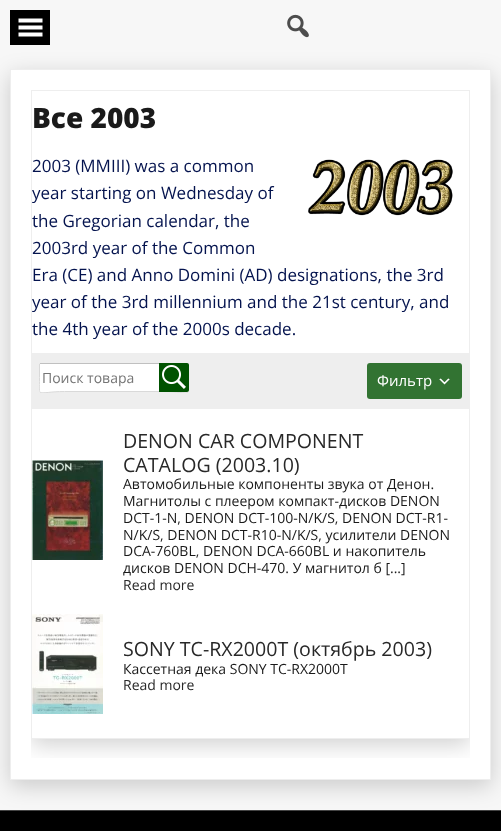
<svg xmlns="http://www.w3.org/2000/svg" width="501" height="831">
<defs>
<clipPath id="clip1"><rect x="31" y="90" width="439" height="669"/></clipPath>
<clipPath id="clip2"><rect x="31" y="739" width="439" height="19"/></clipPath>
<clipPath id="clip3"><rect x="39" y="363" width="150" height="30"/></clipPath>
</defs>
<rect width="100%" height="100%" fill="#f7f7f7"/>
<rect y="810" width="501" height="1" fill="#444"/>
<rect y="811" width="501" height="20" fill="#000"/>
<rect x="10" y="75" width="481" height="711" fill="#0000002e" filter="blur(11px)"/>
<image x="10" y="10" width="40" height="35" href="media/1.png"/>
<image x="287" y="14" width="22" height="24" href="media/2.png"/>
<rect x="10.5" y="69.5" width="480" height="710" fill="#fff" stroke="#eee"/>
<g clip-path="url(#clip1)">
<g clip-path="url(#clip2)">
<rect x="31" y="96" width="439" height="649" fill="#0000002e" filter="blur(11px)"/>
</g>
</g>
<rect x="31.5" y="90.5" width="438" height="648" fill="none" stroke="#eee"/>
<text x="32" y="128" style="font-family:Open Sans;font-size:28px;font-weight:800;fill:#1a1a1a">Все 2003</text>
<text x="32" y="172" style="font-family:Open Sans;font-size:17px;fill:#04134e">2003 (MMIII) was a common</text>
<text x="32" y="199" style="font-family:Open Sans;font-size:17px;fill:#04134e">year starting on Wednesday of</text>
<text x="32" y="227" style="font-family:Open Sans;font-size:17px;fill:#04134e">the Gregorian calendar, the</text>
<text x="32" y="254" style="font-family:Open Sans;font-size:17px;fill:#04134e">2003rd year of the Common</text>
<text x="32" y="281" style="font-family:Open Sans;font-size:17px;fill:#04134e">Era (CE) and Anno Domini (AD) designations, the 3rd</text>
<text x="32" y="308" style="font-family:Open Sans;font-size:17px;fill:#04134e">year of the 3rd millennium and the 21st century, and</text>
<text x="32" y="335" style="font-family:Open Sans;font-size:17px;fill:#04134e">the 4th year of the 2000s decade.</text>
<image x="308" y="159" width="145" height="57" href="media/3.png"/>
<rect x="32" y="353" width="437" height="56" fill="#eee"/>
<rect x="39" y="363" width="150" height="29" rx="1" fill="#fff"/>
<rect x="40" y="363" width="149" height="1" fill="#c0c0c0"/>
<g clip-path="url(#clip3)">
<path d="M188.5 363.5v14c0 22 4 14-25 14h-99c-29 0-25 8-25-14v-14" fill="none" stroke="#d9d9d9"/>
</g>
<text x="42" y="383" style="font-family:Open Sans;font-size:14px;fill:#757575">Поиск товара</text>
<path d="M159 363h28c1 0 2 1 2 2v25c0 1-1 2-2 2h-28z" fill="#005200"/>
<image x="162" y="365" width="24" height="24" href="media/4.png"/>
<rect x="367" y="363" width="95" height="36" rx="3" fill="#327332"/>
<text x="377" y="386" style="font-family:Open Sans;font-size:15px;fill:#fff">Фильтр</text>
<image x="439" y="378" width="11" height="7" href="media/5.png"/>
<image x="32" y="460" width="71" height="100" href="media/6.png"/>
<text x="123" y="448" style="font-family:Open Sans;font-size:19.6px;fill:#282828">DENON CAR COMPONENT</text>
<text x="123" y="472" style="font-family:Open Sans;font-size:19.6px;fill:#282828">CATALOG (2003.10)</text>
<text x="123" y="489" style="font-family:Open Sans;font-size:14px;fill:#1a1a1a">Автомобильные компоненты звука от Денон.</text>
<text x="123" y="506" style="font-family:Open Sans;font-size:14px;fill:#1a1a1a">Магнитолы c плеером компакт-дисков DENON</text>
<text x="123" y="523" style="font-family:Open Sans;font-size:14px;fill:#1a1a1a">DCT-1-N, DENON DCT-100-N/K/S, DENON DCT-R1-</text>
<text x="123" y="540" style="font-family:Open Sans;font-size:14px;fill:#1a1a1a">N/K/S, DENON DCT-R10-N/K/S, усилители DENON</text>
<text x="123" y="556" style="font-family:Open Sans;font-size:14px;fill:#1a1a1a">DCA-760BL, DENON DCA-660BL и накопитель</text>
<text x="123" y="573" style="font-family:Open Sans;font-size:14px;fill:#1a1a1a">дисков DENON DCH-470. У магнитол б [...]</text>
<text x="123" y="590" style="font-family:Open Sans;font-size:14px;fill:#282828">Read more</text>
<image x="32" y="614" width="71" height="100" href="media/7.png"/>
<text x="123" y="656" style="font-family:Open Sans;font-size:19.6px;fill:#282828">SONY TC-RX2000T (октябрь 2003)</text>
<text x="123" y="674" style="font-family:Open Sans;font-size:14px;fill:#1a1a1a">Кассетная дека SONY TC-RX2000T</text>
<text x="123" y="690" style="font-family:Open Sans;font-size:14px;fill:#282828">Read more</text>
</svg>
